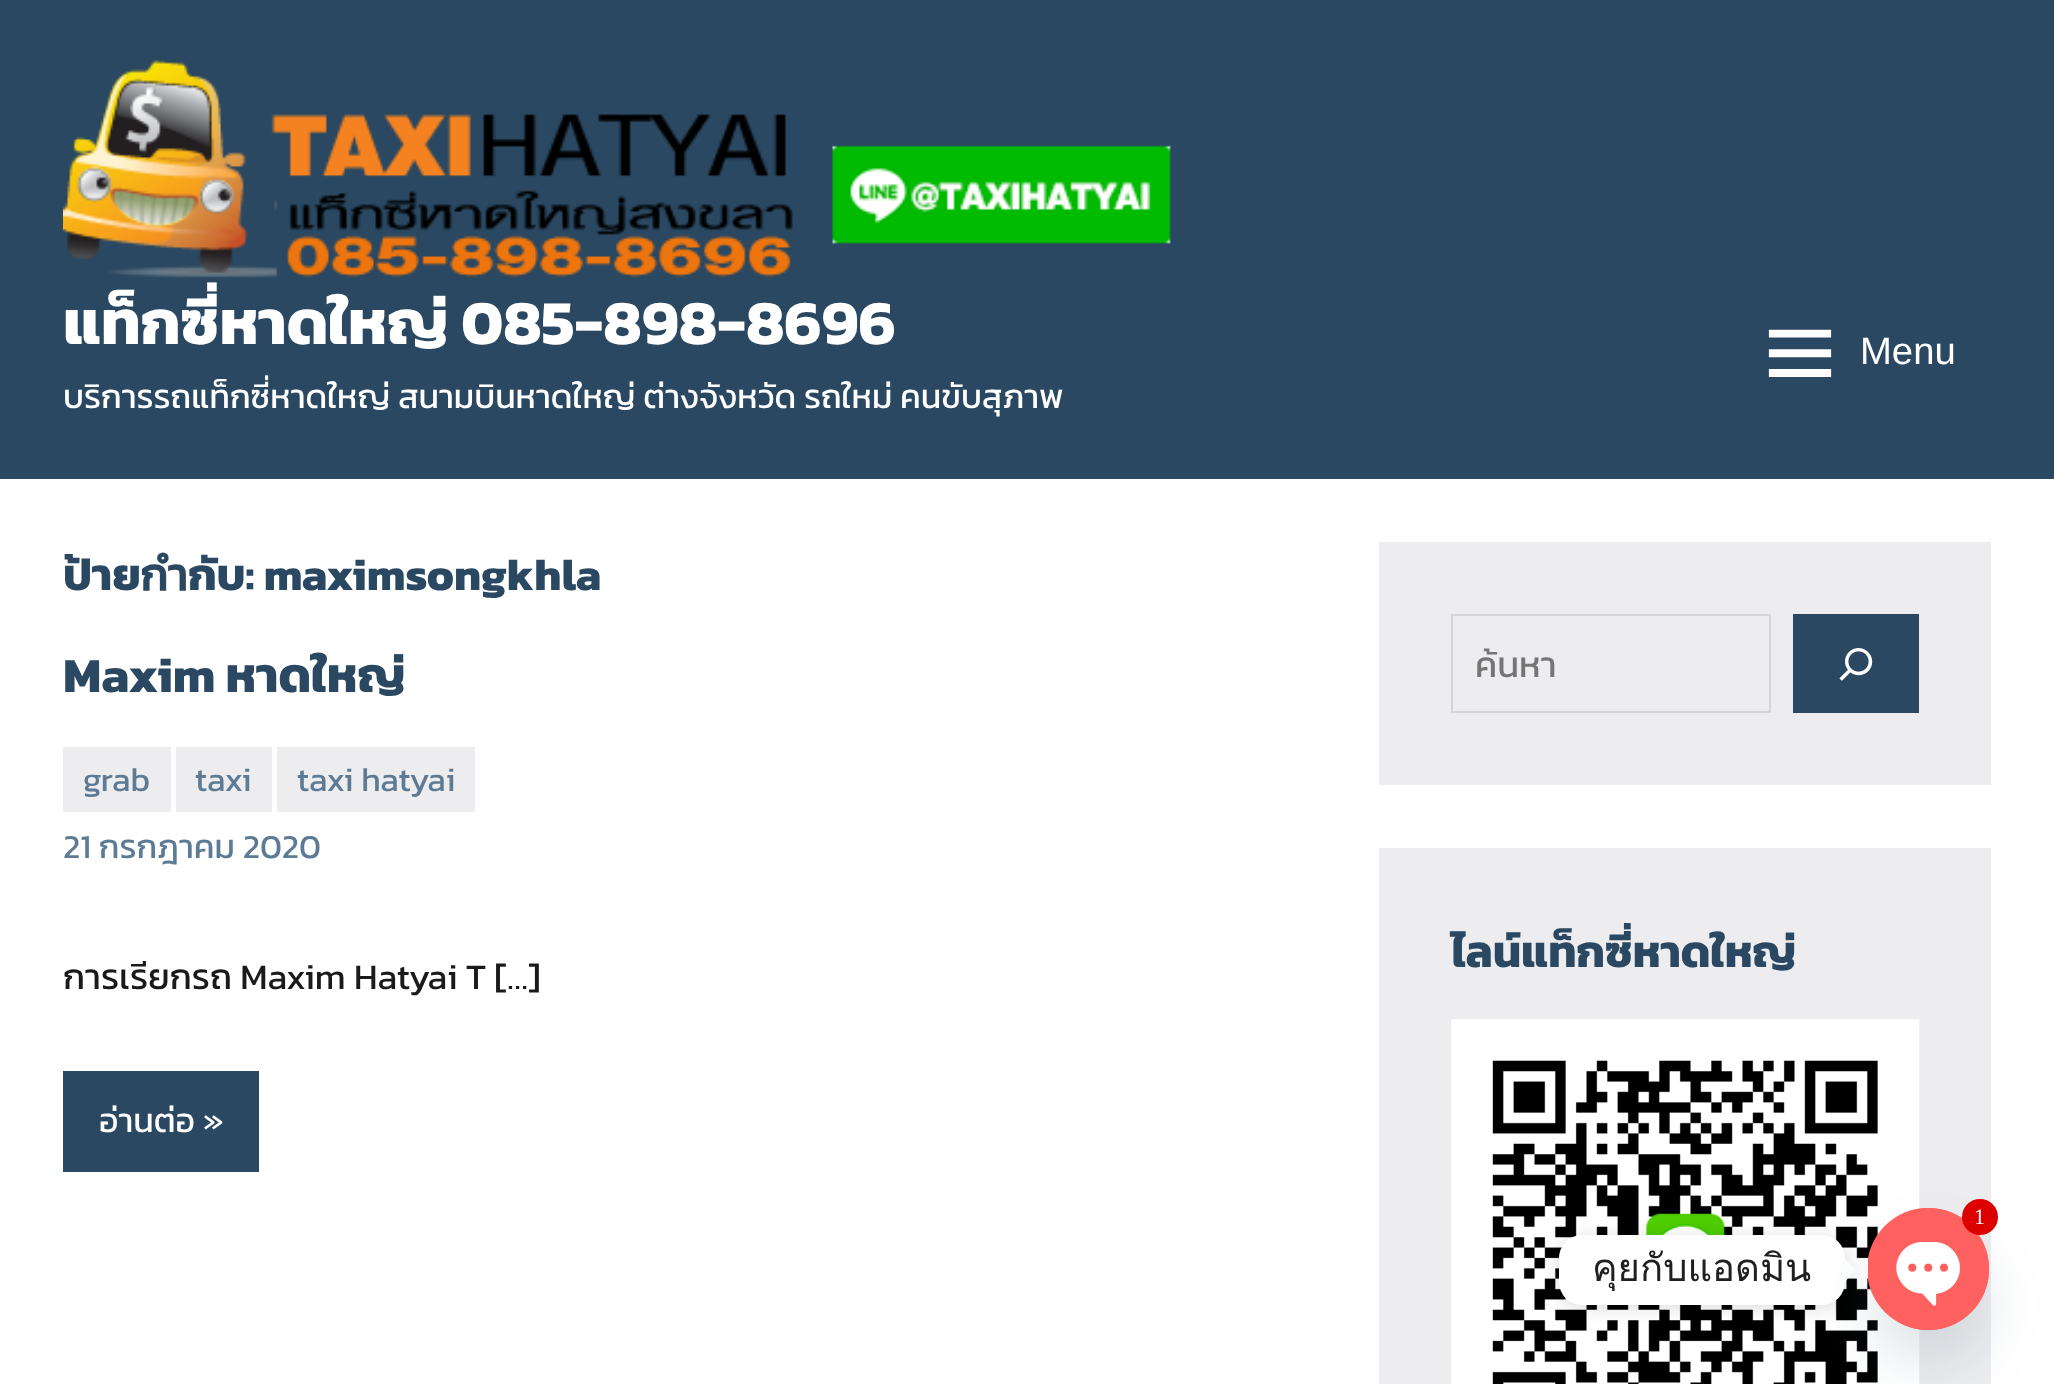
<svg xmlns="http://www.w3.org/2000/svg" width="2054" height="1384">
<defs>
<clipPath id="clip1"><rect x="1476" y="637" width="261" height="54"/></clipPath>
</defs>
<rect width="100%" height="100%" fill="#2a4861"/>
<image x="63" y="60" width="1108" height="218" href="media/1.png"/>
<text x="63" y="344" style="font-family:Kanit;font-size:63px;font-weight:bold;fill:#fff">แท็กซี่หาดใหญ่ 085-898-8696</text>
<text x="63" y="408" style="font-family:Kanit;font-size:33.75px;fill:#fff">บริการรถแท็กซี่หาดใหญ่ สนามบินหาดใหญ่ ต่างจังหวัด รถใหม่ คนขับสุภาพ</text>
<image x="1768" y="329" width="64" height="48" href="media/2.png"/>
<text x="1860" y="364" style="font-family:Liberation Sans;font-size:38.25px;fill:#fff">Menu</text>
<rect y="479" width="2054" height="905" fill="#fff"/>
<text x="63" y="590" style="font-family:Kanit;font-size:45px;font-weight:bold;fill:#2a4861">ป้ายกำกับ: maximsongkhla</text>
<text x="63" y="692" style="font-family:Kanit;font-size:49.5px;font-weight:bold;fill:#2a4861">Maxim หาดใหญ่</text>
<rect x="63" y="747" width="108" height="65" fill="#ededef"/>
<text x="83" y="791" style="font-family:Kanit;font-size:33.75px;fill:#5d7b94">grab</text>
<rect x="176" y="747" width="96" height="65" fill="#ededef"/>
<text x="195" y="791" style="font-family:Kanit;font-size:33.75px;fill:#5d7b94">taxi</text>
<rect x="277" y="747" width="198" height="65" fill="#ededef"/>
<text x="297" y="791" style="font-family:Kanit;font-size:33.75px;fill:#5d7b94">taxi hatyai</text>
<text x="63" y="858" style="font-family:Kanit;font-size:33.75px;fill:#5d7b94">21 กรกฎาคม 2020</text>
<text x="63" y="989" style="font-family:Kanit;font-size:36px;fill:#1a1a1a">การเรียกรถ Maxim Hatyai T […]</text>
<rect x="63" y="1071" width="196" height="101" fill="#2a4861"/>
<text x="99" y="1132" style="font-family:Kanit;font-size:33.75px;fill:#fff">อ่านต่อ »</text>
<rect x="1379" y="542" width="612" height="243" fill="#ededef"/>
<rect x="1452" y="615" width="318" height="97" fill="none" stroke="#d5d5d7" stroke-width="2"/>
<g clip-path="url(#clip1)">
<text x="1475" y="677" style="font-family:Kanit;font-size:36px;fill:#757575">ค้นหา</text>
</g>
<rect x="1793" y="614" width="126" height="99" fill="#2a4861"/>
<image x="1839" y="648" width="34" height="33" href="media/3.png"/>
<rect x="1379" y="848" width="612" height="536" fill="#ededef"/>
<text x="1451" y="967" style="font-family:Kanit;font-size:45px;font-weight:bold;fill:#2a4861">ไลน์แท็กซี่หาดใหญ่</text>
<image x="1451" y="1019" width="469" height="365" href="media/4.png"/>
<rect x="1559" y="1238" width="286" height="69" rx="23" fill="#00000026" filter="blur(8.5px)"/>
<rect x="1559" y="1235" width="286" height="70" rx="23" fill="#fff"/>
<path d="M1845 1281.5v-22.5l11 11z" fill="#fff"/>
<rect x="1868" y="1244" width="121" height="122" rx="60.5" fill="#49687e29" filter="blur(27px)"/>
<rect x="1868" y="1208" width="121" height="122" rx="60.5" fill="#ff6060"/>
<image x="1868" y="1208" width="121" height="122" href="media/5.png"/>
<circle cx="1980" cy="1217" r="18" fill="#d00"/>
<text x="1974" y="1224" style="font-family:Liberation Serif;font-size:22px;fill:#fff">1</text>
<text x="1592" y="1281" style="font-family:Loma;font-size:38.25px;fill:#202020">คุยกับแอดมิน</text>
</svg>
